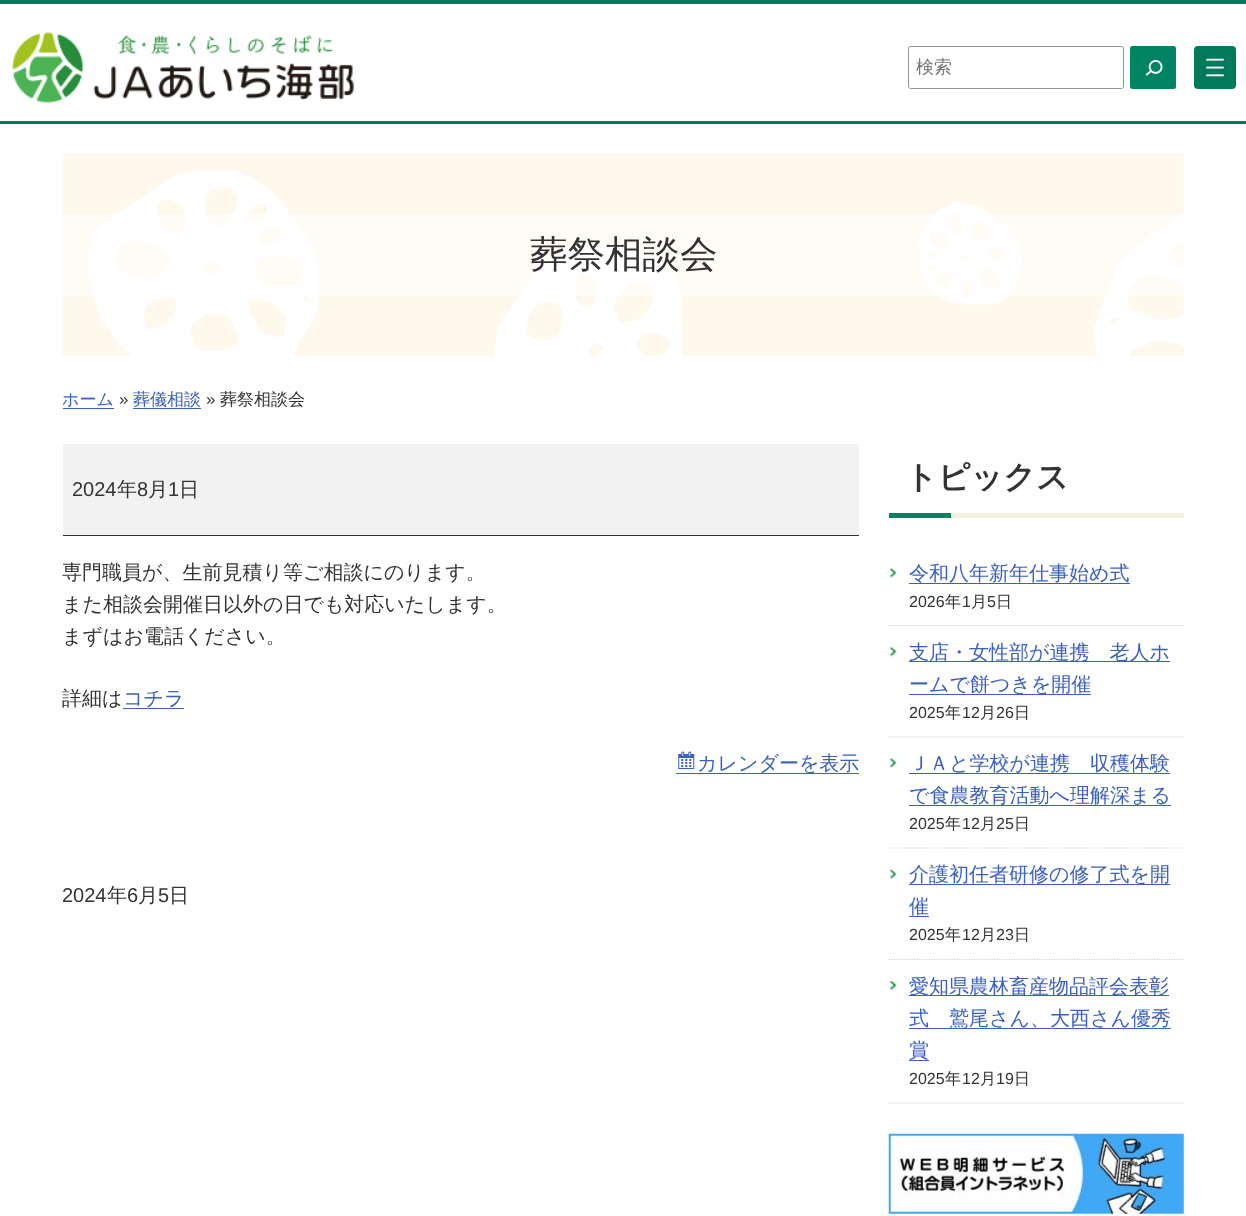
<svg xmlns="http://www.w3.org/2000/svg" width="1246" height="1216">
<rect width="100%" height="100%" fill="#fff"/>
<rect width="1246" height="4" fill="#007a5a"/>
<rect y="121" width="1246" height="3" fill="#007a5a"/>
<rect x="1194" y="46" width="42" height="43" rx="4" fill="#007a5a"/>
<image x="1206" y="58" width="18" height="19" href="media/1.png"/>
<image x="12" y="32" width="342" height="71" href="media/2.png"/>
<rect x="908.5" y="46.5" width="215" height="42" rx="2" fill="none" stroke="#949494"/>
<text x="916" y="73" style="font-family:WenQuanYi Zen Hei;font-size:18px;font-weight:500;fill:#757575">検索</text>
<rect x="1130" y="46" width="46" height="43" rx="2.5" fill="#008464"/>
<image x="1145" y="60" width="18" height="16" href="media/3.png"/>
<image x="62" y="153" width="1122" height="204" href="media/4.png"/>
<rect x="63" y="214" width="1121" height="82" fill="#ffffff80"/>
<text x="530" y="267" style="font-family:WenQuanYi Zen Hei;font-size:37.5px;font-weight:500;fill:#333">葬祭相談会</text>
<text x="62" y="405" style="font-family:WenQuanYi Zen Hei;font-size:17px;font-weight:500;fill:#3b60bf">ホーム</text>
<rect x="63" y="408" width="51" height="1" fill="#3b60bf"/>
<text x="119" y="405" style="font-family:Liberation Sans;font-size:17px;fill:#333">»</text>
<text x="133" y="405" style="font-family:WenQuanYi Zen Hei;font-size:17px;font-weight:500;fill:#3b60bf">葬儀相談</text>
<rect x="133" y="408" width="68" height="1" fill="#3b60bf"/>
<text x="206" y="405" style="font-family:Liberation Sans;font-size:17px;fill:#333">»</text>
<text x="220" y="405" style="font-family:WenQuanYi Zen Hei;font-size:17px;font-weight:500;fill:#333">葬祭相談会</text>
<rect x="63" y="444" width="796" height="91" fill="#f2f2f2"/>
<rect x="63" y="535" width="796" height="1" fill="#333"/>
<text x="72" y="496" style="font-family:Liberation Sans;font-size:20px;fill:#333">2024</text>
<text x="117" y="496" style="font-family:WenQuanYi Zen Hei;font-size:20px;font-weight:500;fill:#333">年</text>
<text x="137" y="496" style="font-family:Liberation Sans;font-size:20px;fill:#333">8</text>
<text x="148" y="496" style="font-family:WenQuanYi Zen Hei;font-size:20px;font-weight:500;fill:#333">月</text>
<text x="168" y="496" style="font-family:Liberation Sans;font-size:20px;fill:#333">1</text>
<text x="179" y="496" style="font-family:WenQuanYi Zen Hei;font-size:20px;font-weight:500;fill:#333">日</text>
<text x="62" y="579" style="font-family:WenQuanYi Zen Hei;font-size:20px;font-weight:500;fill:#333">専門職員が、生前見積り等ご相談にのります。</text>
<text x="62" y="611" style="font-family:WenQuanYi Zen Hei;font-size:20px;font-weight:500;fill:#333">また相談会開催日以外の日でも対応いたします。</text>
<text x="62" y="643" style="font-family:WenQuanYi Zen Hei;font-size:20px;font-weight:500;fill:#333">まずはお電話ください。</text>
<text x="62" y="705" style="font-family:WenQuanYi Zen Hei;font-size:20px;font-weight:500;fill:#333">詳細は</text>
<text x="123" y="705" style="font-family:WenQuanYi Zen Hei;font-size:20px;font-weight:500;fill:#3b60bf">コチラ</text>
<rect x="123" y="708" width="61" height="1" fill="#3b60bf"/>
<image x="678" y="751" width="17" height="18" href="media/5.png"/>
<rect x="676" y="773" width="183" height="1" fill="#3b60bf"/>
<text x="697" y="770" style="font-family:WenQuanYi Zen Hei;font-size:20px;font-weight:500;fill:#3b60bf">カレンダーを表示</text>
<text x="62" y="902" style="font-family:Liberation Sans;font-size:20px;fill:#333">2024</text>
<text x="107" y="902" style="font-family:WenQuanYi Zen Hei;font-size:20px;font-weight:500;fill:#333">年</text>
<text x="127" y="902" style="font-family:Liberation Sans;font-size:20px;fill:#333">6</text>
<text x="138" y="902" style="font-family:WenQuanYi Zen Hei;font-size:20px;font-weight:500;fill:#333">月</text>
<text x="158" y="902" style="font-family:Liberation Sans;font-size:20px;fill:#333">5</text>
<text x="169" y="902" style="font-family:WenQuanYi Zen Hei;font-size:20px;font-weight:500;fill:#333">日</text>
<rect x="951" y="513" width="233" height="5" fill="#f3f1e0"/>
<text x="905" y="488" style="font-family:WenQuanYi Zen Hei;font-size:32px;font-weight:bold;fill:#333">トピックス</text>
<rect x="889" y="513" width="62" height="5" fill="#008464"/>
<image x="889" y="568" width="8" height="10" href="media/6.png"/>
<path d="M889 625.5h295" fill="none" stroke="#cdcdcd" stroke-width="1.2" stroke-dasharray="1.25 1.25"/>
<rect x="909" y="583" width="221" height="1" fill="#3b60bf"/>
<text x="909" y="580" style="font-family:WenQuanYi Zen Hei;font-size:20px;font-weight:500;fill:#3b60bf">令和八年新年仕事始め式</text>
<text x="909" y="607" style="font-family:Liberation Sans;font-size:16px;fill:#333">2026</text>
<text x="945" y="607" style="font-family:WenQuanYi Zen Hei;font-size:16px;font-weight:500;fill:#333">年</text>
<text x="962" y="607" style="font-family:Liberation Sans;font-size:16px;fill:#333">1</text>
<text x="971" y="607" style="font-family:WenQuanYi Zen Hei;font-size:16px;font-weight:500;fill:#333">月</text>
<text x="987" y="607" style="font-family:Liberation Sans;font-size:16px;fill:#333">5</text>
<text x="996" y="607" style="font-family:WenQuanYi Zen Hei;font-size:16px;font-weight:500;fill:#333">日</text>
<image x="889" y="647" width="8" height="10" href="media/7.png"/>
<path d="M889 737h295" fill="none" stroke="#cdcdcd" stroke-width="1.2" stroke-dasharray="1.25 1.25"/>
<rect x="909" y="661" width="261" height="1" fill="#3b60bf"/>
<text x="909" y="659" style="font-family:WenQuanYi Zen Hei;font-size:20px;font-weight:500;fill:#3b60bf">支店・女性部が連携　老人ホ</text>
<rect x="909" y="694" width="182" height="1" fill="#3b60bf"/>
<text x="909" y="691" style="font-family:WenQuanYi Zen Hei;font-size:20px;font-weight:500;fill:#3b60bf">ームで餅つきを開催</text>
<text x="909" y="718" style="font-family:Liberation Sans;font-size:16px;fill:#333">2025</text>
<text x="945" y="718" style="font-family:WenQuanYi Zen Hei;font-size:16px;font-weight:500;fill:#333">年</text>
<text x="962" y="718" style="font-family:Liberation Sans;font-size:16px;fill:#333">12</text>
<text x="980" y="718" style="font-family:WenQuanYi Zen Hei;font-size:16px;font-weight:500;fill:#333">月</text>
<text x="996" y="718" style="font-family:Liberation Sans;font-size:16px;fill:#333">26</text>
<text x="1014" y="718" style="font-family:WenQuanYi Zen Hei;font-size:16px;font-weight:500;fill:#333">日</text>
<image x="889" y="758" width="8" height="10" href="media/6.png"/>
<path d="M889 848h295" fill="none" stroke="#cdcdcd" stroke-width="1.2" stroke-dasharray="1.25 1.25"/>
<text x="909" y="770" style="font-family:WenQuanYi Zen Hei;font-size:20px;font-weight:500;fill:#3b60bf">ＪＡと学校が連携　収穫体験</text>
<rect x="909" y="773" width="261" height="1" fill="#3b60bf"/>
<text x="909" y="802" style="font-family:WenQuanYi Zen Hei;font-size:20px;font-weight:500;fill:#3b60bf">で食農教育活動へ理解深まる</text>
<rect x="909" y="805" width="262" height="1" fill="#3b60bf"/>
<text x="909" y="829" style="font-family:Liberation Sans;font-size:16px;fill:#333">2025</text>
<text x="945" y="829" style="font-family:WenQuanYi Zen Hei;font-size:16px;font-weight:500;fill:#333">年</text>
<text x="962" y="829" style="font-family:Liberation Sans;font-size:16px;fill:#333">12</text>
<text x="980" y="829" style="font-family:WenQuanYi Zen Hei;font-size:16px;font-weight:500;fill:#333">月</text>
<text x="996" y="829" style="font-family:Liberation Sans;font-size:16px;fill:#333">25</text>
<text x="1014" y="829" style="font-family:WenQuanYi Zen Hei;font-size:16px;font-weight:500;fill:#333">日</text>
<image x="889" y="869" width="8" height="10" href="media/8.png"/>
<path d="M889 959.5h295" fill="none" stroke="#cdcdcd" stroke-width="1.2" stroke-dasharray="1.25 1.25"/>
<rect x="909" y="884" width="261" height="1" fill="#3b60bf"/>
<text x="909" y="881" style="font-family:WenQuanYi Zen Hei;font-size:20px;font-weight:500;fill:#3b60bf">介護初任者研修の修了式を開</text>
<text x="909" y="913" style="font-family:WenQuanYi Zen Hei;font-size:20px;font-weight:500;fill:#3b60bf">催</text>
<rect x="909" y="916" width="20" height="1" fill="#3b60bf"/>
<text x="909" y="940" style="font-family:Liberation Sans;font-size:16px;fill:#333">2025</text>
<text x="945" y="940" style="font-family:WenQuanYi Zen Hei;font-size:16px;font-weight:500;fill:#333">年</text>
<text x="962" y="940" style="font-family:Liberation Sans;font-size:16px;fill:#333">12</text>
<text x="980" y="940" style="font-family:WenQuanYi Zen Hei;font-size:16px;font-weight:500;fill:#333">月</text>
<text x="996" y="940" style="font-family:Liberation Sans;font-size:16px;fill:#333">23</text>
<text x="1014" y="940" style="font-family:WenQuanYi Zen Hei;font-size:16px;font-weight:500;fill:#333">日</text>
<image x="889" y="981" width="8" height="10" href="media/9.png"/>
<path d="M889 1103h295" fill="none" stroke="#cdcdcd" stroke-width="1.2" stroke-dasharray="1.25 1.25"/>
<rect x="909" y="995" width="260" height="1" fill="#3b60bf"/>
<text x="909" y="993" style="font-family:WenQuanYi Zen Hei;font-size:20px;font-weight:500;fill:#3b60bf">愛知県農林畜産物品評会表彰</text>
<text x="909" y="1025" style="font-family:WenQuanYi Zen Hei;font-size:20px;font-weight:500;fill:#3b60bf">式　鷲尾さん、大西さん優秀</text>
<rect x="909" y="1028" width="262" height="1" fill="#3b60bf"/>
<text x="909" y="1057" style="font-family:WenQuanYi Zen Hei;font-size:20px;font-weight:500;fill:#3b60bf">賞</text>
<rect x="909" y="1060" width="20" height="1" fill="#3b60bf"/>
<text x="909" y="1084" style="font-family:Liberation Sans;font-size:16px;fill:#333">2025</text>
<text x="945" y="1084" style="font-family:WenQuanYi Zen Hei;font-size:16px;font-weight:500;fill:#333">年</text>
<text x="962" y="1084" style="font-family:Liberation Sans;font-size:16px;fill:#333">12</text>
<text x="980" y="1084" style="font-family:WenQuanYi Zen Hei;font-size:16px;font-weight:500;fill:#333">月</text>
<text x="996" y="1084" style="font-family:Liberation Sans;font-size:16px;fill:#333">19</text>
<text x="1014" y="1084" style="font-family:WenQuanYi Zen Hei;font-size:16px;font-weight:500;fill:#333">日</text>
<image x="888" y="1133" width="296" height="81" href="media/10.png"/>
</svg>
